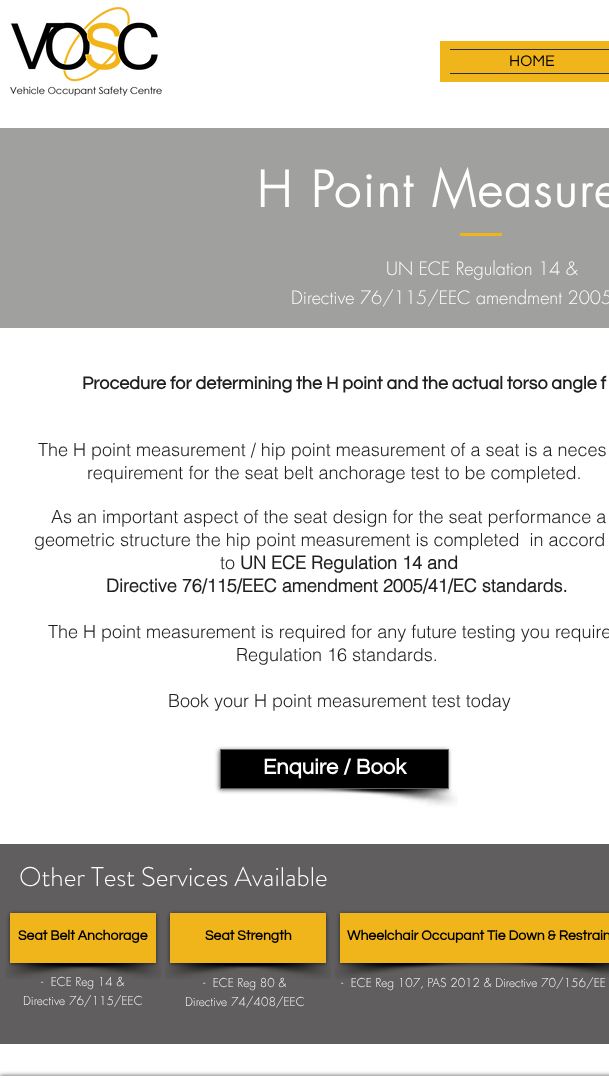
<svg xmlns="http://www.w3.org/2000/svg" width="609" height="1078">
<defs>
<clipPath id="clip1"><rect x="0" y="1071" width="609" height="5"/></clipPath>
</defs>
<rect width="100%" height="100%" fill="#fff"/>
<image x="10" y="7" width="152" height="89" href="media/1.png"/>
<rect x="440" y="41" width="169" height="41" fill="#f1b51c"/>
<rect x="450" y="49" width="159" height="1" fill="#2f2e2e"/>
<rect x="450" y="73" width="159" height="1" fill="#2f2e2e"/>
<text x="509" y="66" style="font-family:Questrial;font-size:16px;fill:#000">HOME</text>
<rect y="128" width="609" height="200" fill="#a0a09f"/>
<text x="257" y="207" style="font-family:futura;font-size:48px;font-weight:bold;letter-spacing:2.4px;fill:#fff">H Point Measure</text>
<rect x="460" y="233" width="42" height="3" fill="#f1b51c"/>
<text x="386" y="275" style="font-family:futura;font-size:18px;font-weight:300;fill:#fff">UN ECE Regulation 14 &amp;</text>
<text x="291" y="304" style="font-family:futura;font-size:18px;font-weight:300;fill:#fff">Directive 76/115/EEC amendment 2005</text>
<text x="82" y="389" style="font-family:Questrial;font-size:18px;font-weight:bold;fill:#1f1f1f">Procedure for determining the H point and the actual torso angle f</text>
<text x="38" y="456" style="font-family:helvetica;font-size:18px;font-weight:300;fill:#1f1f1f">The H point measurement / hip point measurement of a seat is a neces</text>
<text x="87" y="479" style="font-family:helvetica;font-size:18px;font-weight:300;fill:#1f1f1f">requirement for the seat belt anchorage test to be completed.</text>
<text x="51" y="523" style="font-family:helvetica;font-size:18px;font-weight:300;fill:#1f1f1f">As an important aspect of the seat design for the seat performance a</text>
<text x="34" y="546" style="font-family:helvetica;font-size:18px;font-weight:300;fill:#1f1f1f" xml:space="preserve">geometric structure the hip point measurement is completed  in accord</text>
<text x="220" y="569" style="font-family:helvetica;font-size:18px;font-weight:300;fill:#1f1f1f">to</text>
<text x="240" y="569" style="font-family:helvetica;font-size:18px;font-weight:bold;fill:#1f1f1f">UN ECE Regulation 14 and</text>
<text x="106" y="592" style="font-family:helvetica;font-size:18px;font-weight:bold;fill:#1f1f1f">Directive 76/115/EEC amendment 2005/41/EC standards.</text>
<text x="48" y="638" style="font-family:helvetica;font-size:18px;font-weight:300;fill:#1f1f1f">The H point measurement is required for any future testing you require</text>
<text x="236" y="661" style="font-family:helvetica;font-size:18px;font-weight:300;fill:#1f1f1f">Regulation 16 standards.</text>
<text x="168" y="707" style="font-family:helvetica;font-size:18px;font-weight:300;fill:#1f1f1f">Book your H point measurement test today</text>
<image x="304" y="789" width="154" height="18" href="media/2.png"/>
<rect x="219" y="750" width="229" height="40" fill="#00000099" filter="blur(2px)"/>
<rect x="220.5" y="749.5" width="228" height="39" fill="#000" stroke="#605e5e"/>
<text x="263" y="774" style="font-family:Questrial;font-size:22px;font-weight:bold;fill:#fff">Enquire / Book</text>
<rect y="844" width="609" height="200" fill="#605e5e"/>
<text x="19" y="886" style="font-family:'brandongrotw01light';font-size:27px;font-weight:300;fill:#fff">Other Test Services Available</text>
<image x="5" y="963" width="139" height="16" href="media/3.png"/>
<image x="29" y="963" width="132" height="16" href="media/4.png"/>
<rect x="10" y="914" width="146" height="50" fill="#00000099" filter="blur(2px)"/>
<rect x="10" y="913" width="146" height="50" fill="#f1b51c"/>
<text x="18" y="940" style="font-family:Questrial;font-size:14px;font-weight:bold;fill:#000">Seat Belt Anchorage</text>
<image x="165" y="963" width="139" height="16" href="media/3.png"/>
<image x="224" y="963" width="107" height="16" href="media/5.png"/>
<rect x="170" y="914" width="156" height="50" fill="#00000099" filter="blur(2px)"/>
<rect x="170" y="913" width="156" height="50" fill="#f1b51c"/>
<text x="205" y="940" style="font-family:Questrial;font-size:14px;font-weight:bold;fill:#000">Seat Strength</text>
<image x="335" y="963" width="139" height="16" href="media/3.png"/>
<image x="495" y="963" width="114" height="15" href="media/6.png"/>
<rect x="340" y="914" width="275" height="50" fill="#00000099" filter="blur(2px)"/>
<rect x="340" y="913" width="269" height="50" fill="#f1b51c"/>
<text x="347" y="940" style="font-family:Questrial;font-size:14px;font-weight:bold;fill:#000">Wheelchair Occupant Tie Down &amp; Restrain</text>
<text x="41" y="986" style="font-family:futura;font-size:12px;font-weight:300;fill:#fff" xml:space="preserve">-  ECE Reg 14 &amp;</text>
<text x="23" y="1005" style="font-family:futura;font-size:12px;font-weight:300;fill:#fff">Directive 76/115/EEC</text>
<text x="203" y="987" style="font-family:futura;font-size:12px;font-weight:300;fill:#fff" xml:space="preserve">-  ECE Reg 80 &amp;</text>
<text x="185" y="1006" style="font-family:futura;font-size:12px;font-weight:300;fill:#fff">Directive 74/408/EEC</text>
<text x="341" y="987" style="font-family:futura;font-size:12px;font-weight:300;fill:#fff" xml:space="preserve">-  ECE Reg 107, PAS 2012 &amp; Directive 70/156/EE</text>
<g clip-path="url(#clip1)">
<rect y="1076" width="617" height="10" fill="#000000b3" filter="blur(2.5px)"/>
</g>
</svg>
